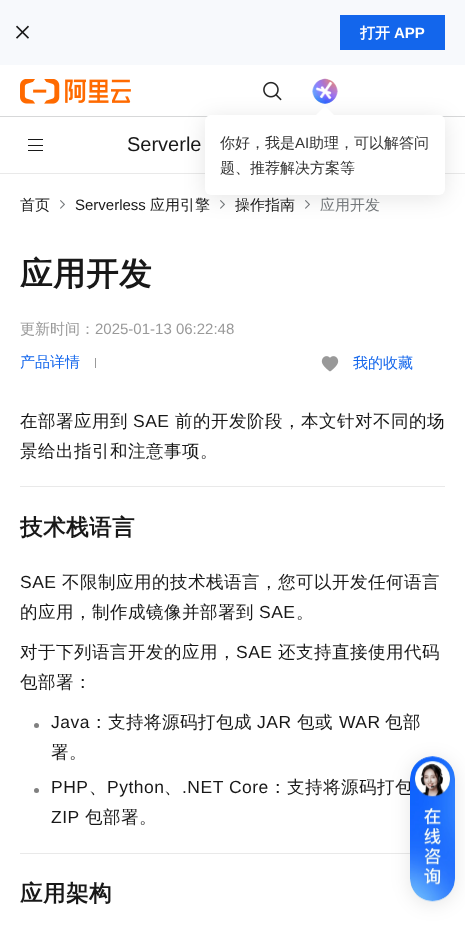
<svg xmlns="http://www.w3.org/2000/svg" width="465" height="926">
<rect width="100%" height="100%" fill="#fff"/>
<rect width="465" height="65" fill="#f7f9fc"/>
<image x="16" y="25" width="13" height="14" href="media/1.png"/>
<rect x="340" y="15" width="105" height="35" fill="#1366ec"/>
<text x="360" y="38" style="font-family:WenQuanYi Zen Hei;font-size:15px;font-weight:bold;fill:#fff">打开</text>
<text x="394" y="38" style="font-family:Liberation Sans;font-size:15px;font-weight:bold;fill:#fff">APP</text>
<rect y="116" width="465" height="1" fill="#d7d8d9"/>
<image x="20" y="79" width="111" height="25" href="media/2.png"/>
<image x="263" y="81" width="19" height="20" href="media/3.png"/>
<image x="312" y="78" width="26" height="26" href="media/4.png"/>
<image x="315" y="81" width="18" height="19" href="media/5.png"/>
<rect y="173" width="465" height="1" fill="#e9e9e9"/>
<image x="220" y="200" width="5" height="9" href="media/6.png"/>
<image x="305" y="200" width="5" height="9" href="media/6.png"/>
<rect x="205" y="118" width="240" height="80" rx="6" fill="#0000001a" filter="blur(11px)"/>
<rect x="205" y="115" width="240" height="80" rx="6" fill="#fff"/>
<path d="M325 106l9 9l-9 9l-9-9z" fill="#fff"/>
<text x="220" y="148" style="font-family:WenQuanYi Zen Hei;font-size:15px;font-weight:500;fill:#333">你好，我是</text>
<text x="295" y="148" style="font-family:Liberation Sans;font-size:15px;fill:#333">AI</text>
<text x="309" y="148" style="font-family:WenQuanYi Zen Hei;font-size:15px;font-weight:500;fill:#333">助理，可以解答问</text>
<text x="220" y="173" style="font-family:WenQuanYi Zen Hei;font-size:15px;font-weight:500;fill:#333">题、推荐解决方案等</text>
<rect x="28" y="139" width="15" height="1" fill="#181818"/>
<rect x="28" y="145" width="15" height="1" fill="#181818"/>
<rect x="28" y="150" width="15" height="1" fill="#181818"/>
<text x="127" y="151" style="font-family:Liberation Sans;font-size:20px;fill:#181818">Serverle</text>
<text x="20" y="210" style="font-family:WenQuanYi Zen Hei;font-size:15px;font-weight:500;fill:#181818">首页</text>
<image x="60" y="200" width="5" height="9" href="media/6.png"/>
<text x="75" y="210" style="font-family:Liberation Sans;font-size:15px;fill:#181818">Serverless</text>
<text x="150" y="210" style="font-family:WenQuanYi Zen Hei;font-size:15px;font-weight:500;fill:#181818">应用引擎</text>
<text x="235" y="210" style="font-family:WenQuanYi Zen Hei;font-size:15px;font-weight:500;fill:#181818">操作指南</text>
<text x="320" y="210" style="font-family:WenQuanYi Zen Hei;font-size:15px;font-weight:500;fill:#73777a">应用开发</text>
<text x="20" y="285" style="font-family:WenQuanYi Zen Hei;font-size:32.5px;font-weight:bold;letter-spacing:0.5px;fill:#181818">应用开发</text>
<text x="20" y="334" style="font-family:WenQuanYi Zen Hei;font-size:15px;font-weight:500;fill:#999">更新时间：</text>
<text x="95" y="334" style="font-family:Liberation Sans;font-size:15px;fill:#999">2025-01-13 06:22:48</text>
<text x="20" y="367" style="font-family:WenQuanYi Zen Hei;font-size:15px;font-weight:500;fill:#1366ec">产品详情</text>
<rect x="95" y="358" width="1" height="10" fill="#999"/>
<image x="321" y="356" width="18" height="16" href="media/7.png"/>
<text x="353" y="368" style="font-family:WenQuanYi Zen Hei;font-size:15px;font-weight:500;fill:#1366ec">我的收藏</text>
<text x="20" y="427" style="font-family:WenQuanYi Zen Hei;font-size:17.5px;font-weight:500;letter-spacing:0.5px;fill:#181818">在部署应用到</text>
<text x="133" y="427" style="font-family:Liberation Sans;font-size:17.5px;letter-spacing:0.5px;fill:#181818">SAE</text>
<text x="175" y="427" style="font-family:WenQuanYi Zen Hei;font-size:17.5px;font-weight:500;letter-spacing:0.5px;fill:#181818">前的开发阶段，本文针对不同的场</text>
<text x="20" y="457" style="font-family:WenQuanYi Zen Hei;font-size:17.5px;font-weight:500;letter-spacing:0.5px;fill:#181818">景给出指引和注意事项。</text>
<rect x="20" y="486" width="425" height="1" fill="#e9e9e9"/>
<text x="20" y="535" style="font-family:WenQuanYi Zen Hei;font-size:22.5px;font-weight:bold;letter-spacing:0.5px;fill:#181818">技术栈语言</text>
<text x="20" y="588" style="font-family:Liberation Sans;font-size:17.5px;letter-spacing:0.5px;fill:#181818">SAE</text>
<text x="62" y="588" style="font-family:WenQuanYi Zen Hei;font-size:17.5px;font-weight:500;letter-spacing:0.5px;fill:#181818">不限制应用的技术栈语言，您可以开发任何语言</text>
<text x="20" y="618" style="font-family:WenQuanYi Zen Hei;font-size:17.5px;font-weight:500;letter-spacing:0.5px;fill:#181818">的应用，制作成镜像并部署到</text>
<text x="259" y="618" style="font-family:Liberation Sans;font-size:17.5px;letter-spacing:0.5px;fill:#181818">SAE</text>
<text x="296" y="618" style="font-family:WenQuanYi Zen Hei;font-size:17.5px;font-weight:500;letter-spacing:0.5px;fill:#181818">。</text>
<text x="20" y="658" style="font-family:WenQuanYi Zen Hei;font-size:17.5px;font-weight:500;letter-spacing:0.5px;fill:#181818">对于下列语言开发的应用，</text>
<text x="236" y="658" style="font-family:Liberation Sans;font-size:17.5px;letter-spacing:0.5px;fill:#181818">SAE</text>
<text x="278" y="658" style="font-family:WenQuanYi Zen Hei;font-size:17.5px;font-weight:500;letter-spacing:0.5px;fill:#181818">还支持直接使用代码</text>
<text x="20" y="688" style="font-family:WenQuanYi Zen Hei;font-size:17.5px;font-weight:500;letter-spacing:0.5px;fill:#181818">包部署：</text>
<circle cx="36.5" cy="725.5" r="2.5" fill="#808080"/>
<text x="51" y="728" style="font-family:Liberation Sans;font-size:17.5px;letter-spacing:0.5px;fill:#181818">Java</text>
<text x="90" y="728" style="font-family:WenQuanYi Zen Hei;font-size:17.5px;font-weight:500;letter-spacing:0.5px;fill:#181818">：支持将源码打包成</text>
<text x="257" y="728" style="font-family:Liberation Sans;font-size:17.5px;letter-spacing:0.5px;fill:#181818">JAR</text>
<text x="297" y="728" style="font-family:WenQuanYi Zen Hei;font-size:17.5px;font-weight:500;letter-spacing:0.5px;fill:#181818">包或</text>
<text x="339" y="728" style="font-family:Liberation Sans;font-size:17.5px;letter-spacing:0.5px;fill:#181818">WAR</text>
<text x="385" y="728" style="font-family:WenQuanYi Zen Hei;font-size:17.5px;font-weight:500;letter-spacing:0.5px;fill:#181818">包部</text>
<text x="51" y="758" style="font-family:WenQuanYi Zen Hei;font-size:17.5px;font-weight:500;letter-spacing:0.5px;fill:#181818">署。</text>
<circle cx="36.5" cy="790.5" r="2.5" fill="#808080"/>
<text x="51" y="793" style="font-family:Liberation Sans;font-size:17.5px;letter-spacing:0.5px;fill:#181818">PHP</text>
<text x="89" y="793" style="font-family:WenQuanYi Zen Hei;font-size:17.5px;font-weight:500;letter-spacing:0.5px;fill:#181818">、</text>
<text x="107" y="793" style="font-family:Liberation Sans;font-size:17.5px;letter-spacing:0.5px;fill:#181818">Python</text>
<text x="164" y="793" style="font-family:WenQuanYi Zen Hei;font-size:17.5px;font-weight:500;letter-spacing:0.5px;fill:#181818">、</text>
<text x="182" y="793" style="font-family:Liberation Sans;font-size:17.5px;letter-spacing:0.5px;fill:#181818">.NET Core</text>
<text x="269" y="793" style="font-family:WenQuanYi Zen Hei;font-size:17.5px;font-weight:500;letter-spacing:0.5px;fill:#181818">：支持将源码打包</text>
<text x="51" y="823" style="font-family:Liberation Sans;font-size:17.5px;letter-spacing:0.5px;fill:#181818">ZIP</text>
<text x="85" y="823" style="font-family:WenQuanYi Zen Hei;font-size:17.5px;font-weight:500;letter-spacing:0.5px;fill:#181818">包部署。</text>
<rect x="20" y="853" width="390" height="1" fill="#e9e9e9"/>
<text x="20" y="901" style="font-family:WenQuanYi Zen Hei;font-size:22.5px;font-weight:bold;letter-spacing:0.5px;fill:#181818">应用架构</text>
<rect x="410" y="759" width="45" height="145" rx="22.5" fill="#0000001a" filter="blur(9.5px)"/>
<image x="410" y="756" width="45" height="146" href="media/8.png"/>
</svg>
